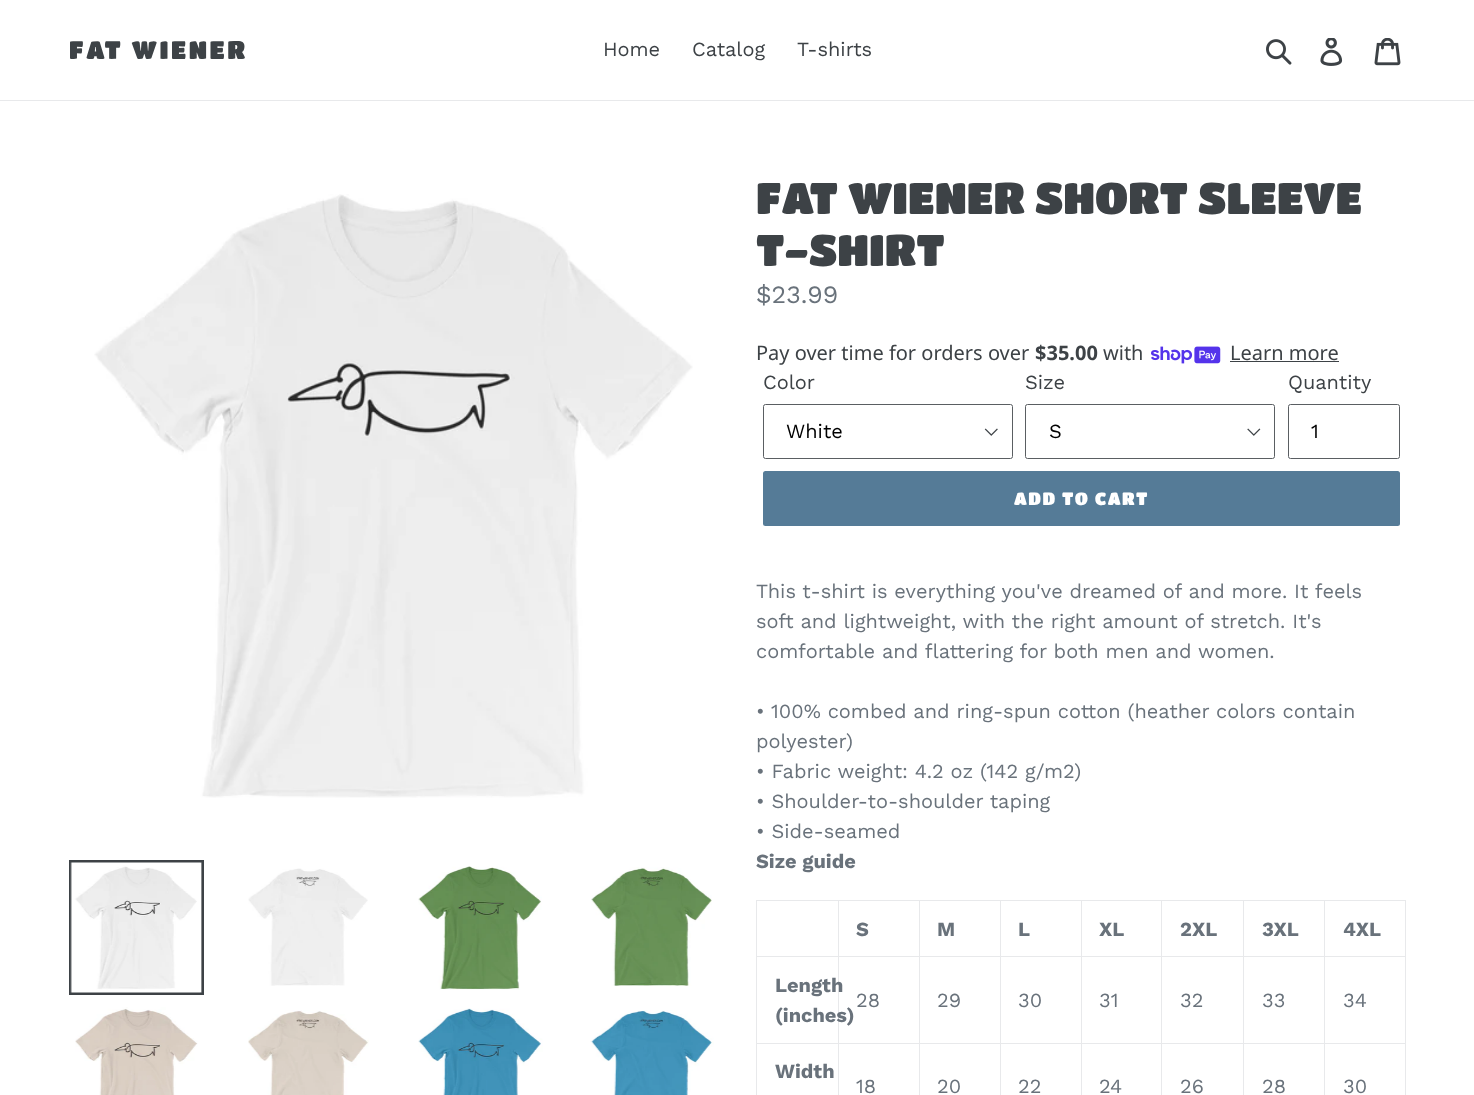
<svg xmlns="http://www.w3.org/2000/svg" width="1474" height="1095">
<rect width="100%" height="100%" fill="#fff"/>
<rect y="100" width="1474" height="1" fill="#e8e9eb"/>
<text x="69" y="59" style="font-family:Titan One;font-size:25px;letter-spacing:2.5px;fill:#3d4246">FAT WIENER</text>
<text x="603" y="56" style="font-family:Work Sans;font-size:20px;fill:#3d4246">Home</text>
<text x="692" y="56" style="font-family:Work Sans;font-size:20px;fill:#3d4246">Catalog</text>
<text x="797" y="56" style="font-family:Work Sans;font-size:20px;fill:#3d4246">T-shirts</text>
<image x="1266" y="39" width="26" height="26" href="media/1.png"/>
<image x="1320" y="38" width="23" height="28" href="media/2.png"/>
<image x="1374" y="38" width="27" height="28" href="media/3.png"/>
<image x="94" y="194" width="599" height="604" href="media/4.png"/>
<rect x="70.5" y="861.5" width="132" height="132" fill="none" stroke="#3d4246" stroke-width="3"/>
<image x="70" y="862" width="132" height="131" href="media/5.png"/>
<image x="248" y="868" width="120" height="118" href="media/6.png"/>
<image x="418" y="866" width="124" height="124" href="media/7.png"/>
<image x="591" y="867" width="121" height="119" href="media/8.png"/>
<image x="75" y="1007" width="123" height="88" href="media/9.png"/>
<image x="248" y="1010" width="121" height="85" href="media/10.png"/>
<image x="418" y="1008" width="125" height="87" href="media/11.png"/>
<image x="590" y="1010" width="124" height="85" href="media/12.png"/>
<text x="756" y="214" style="font-family:Titan One;font-size:43.75px;fill:#3d4246">FAT WIENER SHORT SLEEVE</text>
<text x="756" y="266" style="font-family:Titan One;font-size:43.75px;fill:#3d4246">T-SHIRT</text>
<text x="756" y="303" style="font-family:Work Sans;font-size:25px;fill:#69727b">$23.99</text>
<text x="756" y="360" style="font-family:Noto Sans;font-size:20px;fill:#3d4246">Pay over time for orders over</text>
<text x="1035" y="360" style="font-family:Noto Sans;font-size:20px;font-weight:bold;fill:#3d4246">$35.00</text>
<text x="1103" y="360" style="font-family:Noto Sans;font-size:20px;fill:#3d4246">with</text>
<image x="1151" y="346" width="70" height="18" href="media/13.png"/>
<text x="1230" y="360" style="font-family:Noto Sans;font-size:20px;fill:#3d4246">Learn more</text>
<rect x="1230" y="361" width="109" height="1" fill="#3d4246"/>
<text x="763" y="389" style="font-family:Work Sans;font-size:20px;fill:#3d4246">Color</text>
<image x="984" y="428" width="14" height="8" href="media/14.png"/>
<rect x="763.5" y="404.5" width="249" height="54" rx="2" fill="none" stroke="#5a5e62"/>
<text x="786" y="438" style="font-family:Work Sans;font-size:20px;fill:#000">White</text>
<text x="1025" y="389" style="font-family:Work Sans;font-size:20px;fill:#3d4246">Size</text>
<image x="1247" y="428" width="14" height="8" href="media/15.png"/>
<rect x="1025.5" y="404.5" width="249" height="54" rx="2" fill="none" stroke="#5a5e62"/>
<text x="1049" y="438" style="font-family:Work Sans;font-size:20px;fill:#000">S</text>
<text x="1288" y="389" style="font-family:Work Sans;font-size:20px;fill:#3d4246">Quantity</text>
<rect x="1288.5" y="404.5" width="111" height="54" rx="2" fill="none" stroke="#5a5e62"/>
<text x="1311" y="438" style="font-family:Work Sans;font-size:20px;fill:#000">1</text>
<rect x="763" y="471" width="637" height="55" rx="2.5" fill="#557b97"/>
<text x="1014" y="505" style="font-family:Titan One;font-size:17.5px;letter-spacing:1.4px;fill:#fff">ADD TO CART</text>
<text x="756" y="598" style="font-family:Work Sans;font-size:20px;fill:#69727b">This t-shirt is everything you've dreamed of and more. It feels</text>
<text x="756" y="628" style="font-family:Work Sans;font-size:20px;fill:#69727b">soft and lightweight, with the right amount of stretch. It's</text>
<text x="756" y="658" style="font-family:Work Sans;font-size:20px;fill:#69727b">comfortable and flattering for both men and women.</text>
<text x="756" y="718" style="font-family:Work Sans;font-size:20px;fill:#69727b">• 100% combed and ring-spun cotton (heather colors contain</text>
<text x="756" y="748" style="font-family:Work Sans;font-size:20px;fill:#69727b">polyester)</text>
<text x="756" y="778" style="font-family:Work Sans;font-size:20px;fill:#69727b">• Fabric weight: 4.2 oz (142 g/m2)</text>
<text x="756" y="808" style="font-family:Work Sans;font-size:20px;fill:#69727b">• Shoulder-to-shoulder taping</text>
<text x="756" y="838" style="font-family:Work Sans;font-size:20px;fill:#69727b">• Side-seamed</text>
<text x="756" y="868" style="font-family:Work Sans;font-size:20px;font-weight:bold;fill:#69727b">Size guide</text>
<rect x="1324" y="900" width="82" height="1" fill="#e8e9eb"/>
<rect x="1324" y="956" width="82" height="1" fill="#e8e9eb"/>
<rect x="1324" y="1043" width="82" height="1" fill="#e8e9eb"/>
<rect x="1324" y="1043" width="1" height="52" fill="#e8e9eb"/>
<rect x="1243" y="1043" width="82" height="1" fill="#e8e9eb"/>
<rect x="1324" y="956" width="1" height="88" fill="#e8e9eb"/>
<rect x="1243" y="956" width="82" height="1" fill="#e8e9eb"/>
<rect x="1324" y="900" width="1" height="58" fill="#e8e9eb"/>
<rect x="1243" y="900" width="82" height="1" fill="#e8e9eb"/>
<rect x="1243" y="1043" width="1" height="52" fill="#e8e9eb"/>
<rect x="1161" y="1043" width="83" height="1" fill="#e8e9eb"/>
<rect x="1243" y="956" width="1" height="88" fill="#e8e9eb"/>
<rect x="1161" y="956" width="83" height="1" fill="#e8e9eb"/>
<rect x="1243" y="900" width="1" height="58" fill="#e8e9eb"/>
<rect x="1161" y="900" width="83" height="1" fill="#e8e9eb"/>
<rect x="1161" y="1043" width="1" height="52" fill="#e8e9eb"/>
<rect x="1081" y="1043" width="82" height="1" fill="#e8e9eb"/>
<rect x="1161" y="956" width="1" height="88" fill="#e8e9eb"/>
<rect x="1081" y="956" width="82" height="1" fill="#e8e9eb"/>
<rect x="1161" y="900" width="1" height="58" fill="#e8e9eb"/>
<rect x="1081" y="900" width="82" height="1" fill="#e8e9eb"/>
<rect x="1081" y="1043" width="1" height="52" fill="#e8e9eb"/>
<rect x="1000" y="1043" width="83" height="1" fill="#e8e9eb"/>
<rect x="1081" y="956" width="1" height="88" fill="#e8e9eb"/>
<rect x="1000" y="956" width="83" height="1" fill="#e8e9eb"/>
<rect x="1081" y="900" width="1" height="58" fill="#e8e9eb"/>
<rect x="1000" y="900" width="83" height="1" fill="#e8e9eb"/>
<rect x="1000" y="1043" width="1" height="52" fill="#e8e9eb"/>
<rect x="919" y="1043" width="82" height="1" fill="#e8e9eb"/>
<rect x="1000" y="956" width="1" height="88" fill="#e8e9eb"/>
<rect x="919" y="956" width="82" height="1" fill="#e8e9eb"/>
<rect x="1000" y="900" width="1" height="58" fill="#e8e9eb"/>
<rect x="919" y="900" width="82" height="1" fill="#e8e9eb"/>
<rect x="919" y="1043" width="1" height="52" fill="#e8e9eb"/>
<rect x="838" y="1043" width="82" height="1" fill="#e8e9eb"/>
<rect x="919" y="956" width="1" height="88" fill="#e8e9eb"/>
<rect x="838" y="956" width="82" height="1" fill="#e8e9eb"/>
<rect x="919" y="900" width="1" height="58" fill="#e8e9eb"/>
<rect x="838" y="900" width="82" height="1" fill="#e8e9eb"/>
<rect x="838" y="1043" width="1" height="52" fill="#e8e9eb"/>
<rect x="756" y="1043" width="83" height="1" fill="#e8e9eb"/>
<rect x="838" y="956" width="1" height="88" fill="#e8e9eb"/>
<rect x="756" y="956" width="83" height="1" fill="#e8e9eb"/>
<rect x="838" y="900" width="1" height="58" fill="#e8e9eb"/>
<rect x="756" y="900" width="83" height="1" fill="#e8e9eb"/>
<rect x="756" y="1043" width="1" height="52" fill="#e8e9eb"/>
<rect x="756" y="956" width="1" height="88" fill="#e8e9eb"/>
<rect x="756" y="900" width="1" height="58" fill="#e8e9eb"/>
<text x="856" y="936" style="font-family:Work Sans;font-size:20px;font-weight:bold;fill:#69727b">S</text>
<text x="937" y="936" style="font-family:Work Sans;font-size:20px;font-weight:bold;fill:#69727b">M</text>
<text x="1018" y="936" style="font-family:Work Sans;font-size:20px;font-weight:bold;fill:#69727b">L</text>
<text x="1099" y="936" style="font-family:Work Sans;font-size:20px;font-weight:bold;fill:#69727b">XL</text>
<text x="1180" y="936" style="font-family:Work Sans;font-size:20px;font-weight:bold;fill:#69727b">2XL</text>
<text x="1262" y="936" style="font-family:Work Sans;font-size:20px;font-weight:bold;fill:#69727b">3XL</text>
<rect x="1405" y="1043" width="1" height="52" fill="#e8e9eb"/>
<rect x="1405" y="956" width="1" height="88" fill="#e8e9eb"/>
<rect x="1405" y="900" width="1" height="58" fill="#e8e9eb"/>
<text x="1343" y="936" style="font-family:Work Sans;font-size:20px;font-weight:bold;fill:#69727b">4XL</text>
<text x="775" y="992" style="font-family:Work Sans;font-size:20px;font-weight:bold;fill:#69727b">Length</text>
<text x="775" y="1022" style="font-family:Work Sans;font-size:20px;font-weight:bold;fill:#69727b">(inches)</text>
<text x="856" y="1007" style="font-family:Work Sans;font-size:20px;fill:#69727b">28</text>
<text x="937" y="1007" style="font-family:Work Sans;font-size:20px;fill:#69727b">29</text>
<text x="1018" y="1007" style="font-family:Work Sans;font-size:20px;fill:#69727b">30</text>
<text x="1099" y="1007" style="font-family:Work Sans;font-size:20px;fill:#69727b">31</text>
<text x="1180" y="1007" style="font-family:Work Sans;font-size:20px;fill:#69727b">32</text>
<text x="1262" y="1007" style="font-family:Work Sans;font-size:20px;fill:#69727b">33</text>
<text x="1343" y="1007" style="font-family:Work Sans;font-size:20px;fill:#69727b">34</text>
<text x="775" y="1078" style="font-family:Work Sans;font-size:20px;font-weight:bold;fill:#69727b">Width</text>
<text x="856" y="1093" style="font-family:Work Sans;font-size:20px;fill:#69727b">18</text>
<text x="937" y="1093" style="font-family:Work Sans;font-size:20px;fill:#69727b">20</text>
<text x="1018" y="1093" style="font-family:Work Sans;font-size:20px;fill:#69727b">22</text>
<text x="1099" y="1093" style="font-family:Work Sans;font-size:20px;fill:#69727b">24</text>
<text x="1180" y="1093" style="font-family:Work Sans;font-size:20px;fill:#69727b">26</text>
<text x="1262" y="1093" style="font-family:Work Sans;font-size:20px;fill:#69727b">28</text>
<text x="1343" y="1093" style="font-family:Work Sans;font-size:20px;fill:#69727b">30</text>
</svg>
